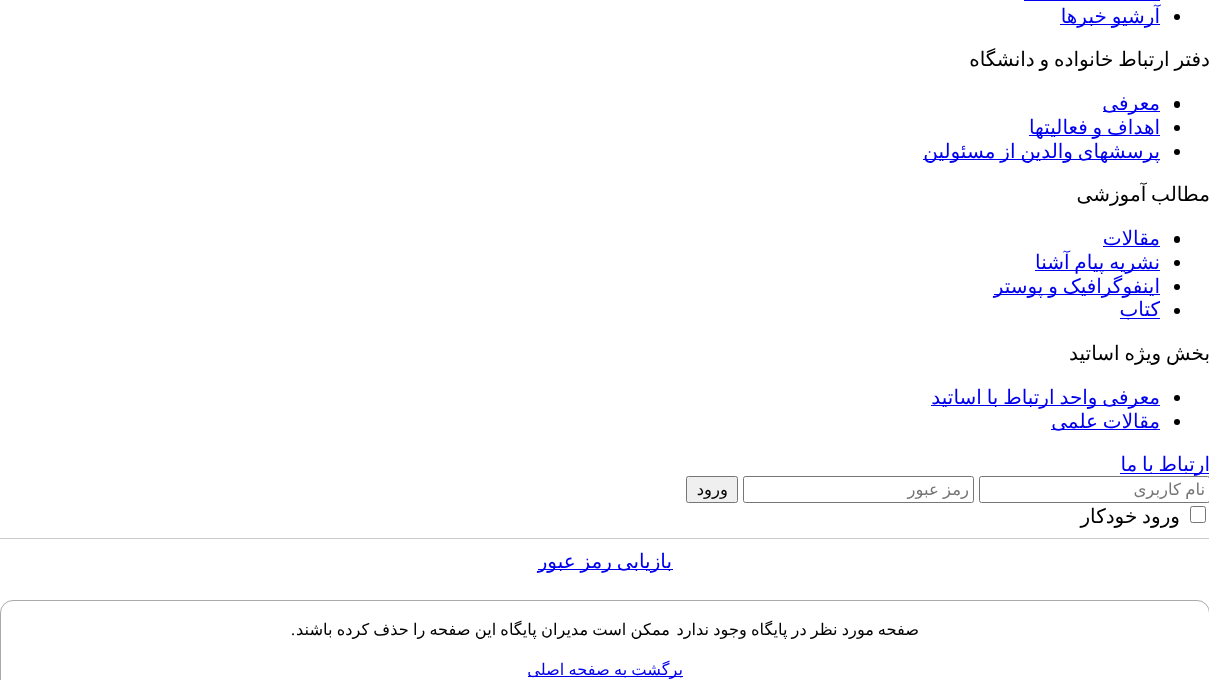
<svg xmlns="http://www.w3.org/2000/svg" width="1209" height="680">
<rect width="100%" height="100%" fill="#fff"/>
<rect x="1024" width="136" height="1" fill="#00e"/>
<circle cx="1177" cy="17" r="3" fill="#000"/>
<rect x="1060" y="24" width="100" height="1" fill="#00e"/>
<text x="1160" y="23" word-spacing="-1.5" style="font-family:DejaVu Sans;font-size:20px;direction:rtl;fill:#00e">آرشیو خبرها</text>
<text x="1210" y="66" word-spacing="-1.5" style="font-family:DejaVu Sans;font-size:20px;direction:rtl;fill:#000">دفتر ارتباط خانواده و دانشگاه</text>
<rect x="1174" y="101" width="6" height="7" rx="3" fill="#000"/>
<rect x="1103" y="111" width="57" height="1" fill="#00e"/>
<text x="1160" y="110" style="font-family:DejaVu Sans;font-size:20px;direction:rtl;fill:#00e">معرفی</text>
<circle cx="1177" cy="128" r="3" fill="#000"/>
<rect x="1029" y="135" width="131" height="1" fill="#00e"/>
<text x="1160" y="134" word-spacing="-1.5" style="font-family:DejaVu Sans;font-size:20px;direction:rtl;fill:#00e">اهداف و فعالیتها</text>
<circle cx="1177" cy="152" r="3" fill="#000"/>
<rect x="923" y="159" width="237" height="1" fill="#00e"/>
<text x="1160" y="158" word-spacing="-1.5" style="font-family:DejaVu Sans;font-size:20px;direction:rtl;fill:#00e">پرسشهای والدین از مسئولین</text>
<text x="1210" y="201" word-spacing="-1.5" style="font-family:DejaVu Sans;font-size:20px;direction:rtl;fill:#000">مطالب آموزشی</text>
<rect x="1174" y="236" width="6" height="7" rx="3" fill="#000"/>
<text x="1160" y="245" style="font-family:DejaVu Sans;font-size:20px;direction:rtl;fill:#00e">مقالات</text>
<rect x="1103" y="246" width="57" height="1" fill="#00e"/>
<circle cx="1177" cy="263" r="3" fill="#000"/>
<rect x="1035" y="270" width="125" height="1" fill="#00e"/>
<text x="1160" y="269" word-spacing="-1.5" style="font-family:DejaVu Sans;font-size:20px;direction:rtl;fill:#00e">نشریه پیام آشنا</text>
<circle cx="1177" cy="287" r="3" fill="#000"/>
<rect x="994" y="294" width="166" height="1" fill="#00e"/>
<text x="1160" y="293" word-spacing="-1.5" style="font-family:DejaVu Sans;font-size:20px;direction:rtl;fill:#00e">اینفوگرافیک و پوستر</text>
<circle cx="1177" cy="311" r="3" fill="#000"/>
<rect x="1120" y="318" width="40" height="1" fill="#00e"/>
<text x="1160" y="316" style="font-family:DejaVu Sans;font-size:20px;direction:rtl;fill:#00e">کتاب</text>
<text x="1210" y="360" word-spacing="-1.5" style="font-family:DejaVu Sans;font-size:20px;direction:rtl;fill:#000">بخش ویژه اساتید</text>
<circle cx="1177" cy="398" r="3" fill="#000"/>
<rect x="931" y="405" width="229" height="1" fill="#00e"/>
<text x="1160" y="404" word-spacing="-1.5" style="font-family:DejaVu Sans;font-size:20px;direction:rtl;fill:#00e">معرفی واحد ارتباط با اساتید</text>
<circle cx="1177" cy="422" r="3" fill="#000"/>
<rect x="1051" y="429" width="109" height="1" fill="#00e"/>
<text x="1160" y="428" word-spacing="-1.5" style="font-family:DejaVu Sans;font-size:20px;direction:rtl;fill:#00e">مقالات علمی</text>
<rect x="1120" y="473" width="89" height="1" fill="#00e"/>
<text x="1210" y="471" word-spacing="-1.5" style="font-family:DejaVu Sans;font-size:20px;direction:rtl;fill:#00e">ارتباط با ما</text>
<rect x="979.5" y="476.5" width="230" height="26" rx="2" fill="none" stroke="#767676"/>
<text x="1205" y="495" word-spacing="-1" style="font-family:DejaVu Sans;font-size:16.5px;direction:rtl;fill:#757575">نام کاربری</text>
<rect x="743.5" y="476.5" width="230" height="26" rx="2" fill="none" stroke="#767676"/>
<text x="969" y="495" word-spacing="-1" style="font-family:DejaVu Sans;font-size:16.5px;direction:rtl;fill:#757575">رمز عبور</text>
<rect x="686.5" y="476.5" width="51" height="26" rx="2" fill="#efefef" stroke="#767676"/>
<text x="728" y="495" style="font-family:DejaVu Sans;font-size:16.5px;direction:rtl;fill:#000">ورود</text>
<rect x="1190.5" y="506.5" width="15" height="16" rx="2" fill="none" stroke="#767676"/>
<text x="1180" y="523" word-spacing="-1.5" style="font-family:DejaVu Sans;font-size:20px;direction:rtl;fill:#000">ورود خودکار</text>
<rect y="538" width="1209" height="1" fill="#ccc"/>
<rect x="538" y="569" width="135" height="1" fill="#00e"/>
<text x="672" y="568" word-spacing="-1.5" style="font-family:DejaVu Sans;font-size:20px;direction:rtl;fill:#00e">بازیابی رمز عبور</text>
<rect x="0.5" y="600.5" width="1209" height="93" rx="12.5" fill="none" stroke="#aaa"/>
<text x="919" y="635" style="font-family:DejaVu Sans;font-size:16.25px;direction:rtl;fill:#000">صفحه</text>
<text x="874" y="635" word-spacing="-1" style="font-family:DejaVu Sans;font-size:16.25px;direction:rtl;fill:#000">مورد نظر در پایگاه وجود ندارد</text>
<text x="670" y="635" word-spacing="-1" style="font-family:DejaVu Sans;font-size:16.25px;direction:rtl;fill:#000">ممکن است مدیران پایگاه این صفحه را حذف کرده باشند</text>
<text x="295" y="635" style="font-family:Liberation Serif;font-size:16.25px;direction:rtl;fill:#000">.</text>
<rect x="528" y="676" width="155" height="1" fill="#00e"/>
<text x="683" y="675" word-spacing="-1" style="font-family:DejaVu Sans;font-size:16.25px;direction:rtl;fill:#00e">برگشت به صفحه اصلی</text>
</svg>
